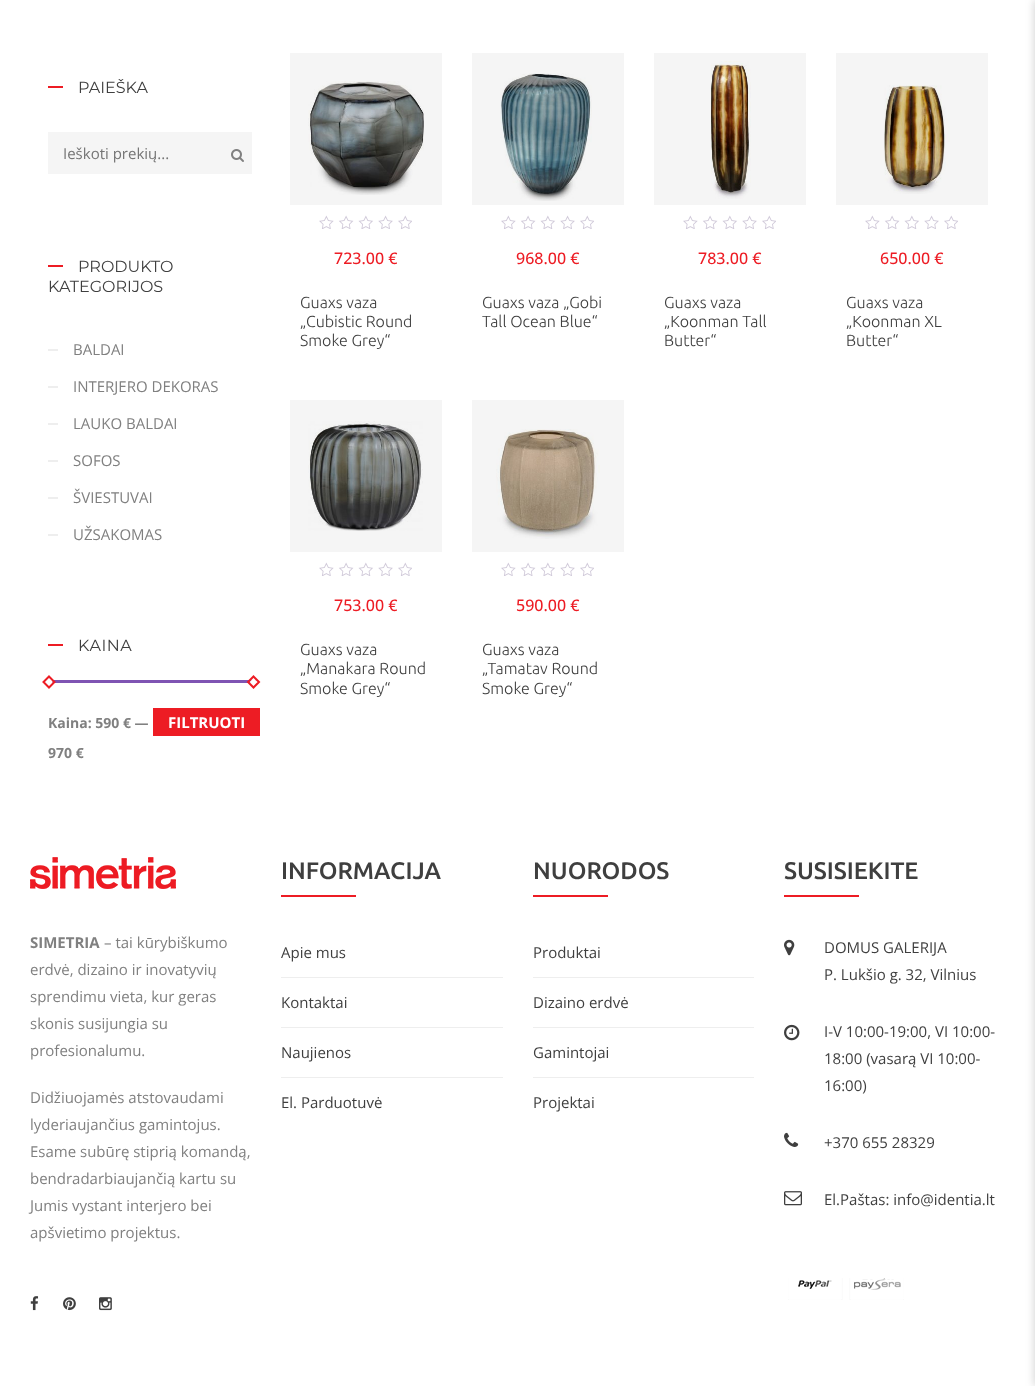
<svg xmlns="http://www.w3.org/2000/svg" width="1035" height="1386">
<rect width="100%" height="100%" fill="#fff"/>
<rect x="472" y="400" width="152" height="152" fill="#f5f5f5"/>
<rect x="290" y="400" width="152" height="152" fill="#f5f5f5"/>
<rect x="836" y="53" width="152" height="152" fill="#f5f5f5"/>
<rect x="654" y="53" width="152" height="152" fill="#f5f5f5"/>
<rect x="472" y="53" width="152" height="152" fill="#f5f5f5"/>
<rect x="290" y="53" width="152" height="152" fill="#f5f5f5"/>
<rect x="48" y="86" width="15" height="2" fill="#ed1c24"/>
<text x="78" y="93" style="font-family:Montserrat;font-size:16px;fill:#3f3f3f">PAIEŠKA</text>
<rect x="48" y="132" width="204" height="42" fill="#f5f5f5"/>
<text x="63" y="159" style="font-family:Open Sans;font-size:15px;fill:#757575">Ieškoti prekių...</text>
<image x="231" y="149" width="13" height="13" href="media/1.png"/>
<rect x="48" y="265" width="15" height="2" fill="#ed1c24"/>
<text x="78" y="272" style="font-family:Montserrat;font-size:16px;fill:#3f3f3f">PRODUKTO</text>
<text x="48" y="292" style="font-family:Montserrat;font-size:16px;fill:#3f3f3f">KATEGORIJOS</text>
<rect x="48" y="349" width="10" height="2" fill="#eee"/>
<text x="73" y="355" style="font-family:Open Sans;font-size:15px;fill:#808080">BALDAI</text>
<rect x="48" y="386" width="10" height="2" fill="#eee"/>
<text x="73" y="392" style="font-family:Open Sans;font-size:15px;fill:#808080">INTERJERO DEKORAS</text>
<rect x="48" y="423" width="10" height="2" fill="#eee"/>
<text x="73" y="429" style="font-family:Open Sans;font-size:15px;fill:#808080">LAUKO BALDAI</text>
<rect x="48" y="460" width="10" height="2" fill="#eee"/>
<text x="73" y="466" style="font-family:Open Sans;font-size:15px;fill:#808080">SOFOS</text>
<rect x="48" y="497" width="10" height="2" fill="#eee"/>
<text x="73" y="503" style="font-family:Open Sans;font-size:15px;fill:#808080">ŠVIESTUVAI</text>
<rect x="48" y="534" width="10" height="2" fill="#eee"/>
<text x="73" y="540" style="font-family:Open Sans;font-size:15px;fill:#808080">UŽSAKOMAS</text>
<rect x="48" y="644" width="15" height="2" fill="#ed1c24"/>
<text x="78" y="651" style="font-family:Montserrat;font-size:16px;letter-spacing:0.5px;fill:#3f3f3f">KAINA</text>
<rect x="52" y="680" width="204" height="3" fill="#7f54b3"/>
<path d="M49 678l4 4l-4 4l-4-4z" fill="#fff"/>
<path d="M49 676.5l5.5 5.5l-5.5 5.5l-5.5-5.5z" fill="none" stroke="#ed1c24" stroke-width="2"/>
<path d="M253.5 678l4 4l-4 4l-4-4z" fill="#fff"/>
<path d="M253.5 676.5l5.5 5.5l-5.5 5.5l-5.5-5.5z" fill="none" stroke="#ed1c24" stroke-width="2"/>
<text x="48" y="728" style="font-family:Open Sans;font-size:14px;font-weight:bold;fill:#808080">Kaina: 590 € —</text>
<text x="48" y="758" style="font-family:Open Sans;font-size:14px;font-weight:bold;fill:#808080">970 €</text>
<rect x="153" y="708" width="107" height="28" fill="#ed1c24"/>
<text x="168" y="728" style="font-family:Open Sans;font-size:15px;font-weight:bold;fill:#fff">FILTRUOTI</text>
<image x="308" y="81" width="116" height="114" href="media/2.png"/>
<image x="319" y="215" width="93" height="14" href="media/3.png"/>
<text x="334" y="264" style="font-family:Open Sans;font-size:16px;font-weight:500;fill:#ed1c24">723.00 €</text>
<text x="300" y="308" style="font-family:Ubuntu;font-size:16px;font-weight:300;fill:#3f3f3f">Guaxs vaza</text>
<text x="300" y="327" style="font-family:Ubuntu;font-size:16px;font-weight:300;fill:#3f3f3f">„Cubistic Round</text>
<text x="300" y="346" style="font-family:Ubuntu;font-size:16px;font-weight:300;fill:#3f3f3f">Smoke Grey“</text>
<image x="500" y="73" width="92" height="128" href="media/4.png"/>
<image x="501" y="215" width="93" height="14" href="media/3.png"/>
<text x="516" y="264" style="font-family:Open Sans;font-size:16px;font-weight:500;fill:#ed1c24">968.00 €</text>
<text x="482" y="308" style="font-family:Ubuntu;font-size:16px;font-weight:300;fill:#3f3f3f">Guaxs vaza „Gobi</text>
<text x="482" y="327" style="font-family:Ubuntu;font-size:16px;font-weight:300;fill:#3f3f3f">Tall Ocean Blue“</text>
<image x="710" y="61" width="41" height="138" href="media/5.png"/>
<image x="683" y="215" width="93" height="14" href="media/3.png"/>
<text x="698" y="264" style="font-family:Open Sans;font-size:16px;font-weight:500;fill:#ed1c24">783.00 €</text>
<text x="664" y="308" style="font-family:Ubuntu;font-size:16px;font-weight:300;fill:#3f3f3f">Guaxs vaza</text>
<text x="664" y="327" style="font-family:Ubuntu;font-size:16px;font-weight:300;fill:#3f3f3f">„Koonman Tall</text>
<text x="664" y="346" style="font-family:Ubuntu;font-size:16px;font-weight:300;fill:#3f3f3f">Butter“</text>
<image x="884" y="85" width="66" height="109" href="media/6.png"/>
<image x="865" y="215" width="93" height="14" href="media/3.png"/>
<text x="880" y="264" style="font-family:Open Sans;font-size:16px;font-weight:500;fill:#ed1c24">650.00 €</text>
<text x="846" y="308" style="font-family:Ubuntu;font-size:16px;font-weight:300;fill:#3f3f3f">Guaxs vaza</text>
<text x="846" y="327" style="font-family:Ubuntu;font-size:16px;font-weight:300;fill:#3f3f3f">„Koonman XL</text>
<text x="846" y="346" style="font-family:Ubuntu;font-size:16px;font-weight:300;fill:#3f3f3f">Butter“</text>
<image x="308" y="421" width="115" height="110" href="media/7.png"/>
<image x="319" y="562" width="93" height="14" href="media/3.png"/>
<text x="334" y="611" style="font-family:Open Sans;font-size:16px;font-weight:500;fill:#ed1c24">753.00 €</text>
<text x="300" y="655" style="font-family:Ubuntu;font-size:16px;font-weight:300;fill:#3f3f3f">Guaxs vaza</text>
<text x="300" y="674" style="font-family:Ubuntu;font-size:16px;font-weight:300;fill:#3f3f3f">„Manakara Round</text>
<text x="300" y="694" style="font-family:Ubuntu;font-size:16px;font-weight:300;fill:#3f3f3f">Smoke Grey“</text>
<image x="496" y="429" width="104" height="110" href="media/8.png"/>
<image x="501" y="562" width="93" height="14" href="media/3.png"/>
<text x="516" y="611" style="font-family:Open Sans;font-size:16px;font-weight:500;fill:#ed1c24">590.00 €</text>
<text x="482" y="655" style="font-family:Ubuntu;font-size:16px;font-weight:300;fill:#3f3f3f">Guaxs vaza</text>
<text x="482" y="674" style="font-family:Ubuntu;font-size:16px;font-weight:300;fill:#3f3f3f">„Tamatav Round</text>
<text x="482" y="694" style="font-family:Ubuntu;font-size:16px;font-weight:300;fill:#3f3f3f">Smoke Grey“</text>
<image x="30" y="857" width="146" height="32" href="media/9.png"/>
<text x="30" y="948" style="font-family:Open Sans;font-size:15px;font-weight:bold;fill:#808080">SIMETRIA</text>
<text x="104" y="948" style="font-family:Open Sans;font-size:15px;fill:#808080">– tai kūrybiškumo</text>
<text x="30" y="975" style="font-family:Open Sans;font-size:15px;fill:#808080">erdvė, dizaino ir inovatyvių</text>
<text x="30" y="1002" style="font-family:Open Sans;font-size:15px;fill:#808080">sprendimu vieta, kur geras</text>
<text x="30" y="1029" style="font-family:Open Sans;font-size:15px;fill:#808080">skonis susijungia su</text>
<text x="30" y="1056" style="font-family:Open Sans;font-size:15px;fill:#808080">profesionalumu.</text>
<text x="30" y="1103" style="font-family:Open Sans;font-size:15px;fill:#808080">Didžiuojamės atstovaudami</text>
<text x="30" y="1130" style="font-family:Open Sans;font-size:15px;fill:#808080">lyderiaujančius gamintojus.</text>
<text x="30" y="1157" style="font-family:Open Sans;font-size:15px;fill:#808080">Esame subūrę stiprią komandą,</text>
<text x="30" y="1184" style="font-family:Open Sans;font-size:15px;fill:#808080">bendradarbiaujančią kartu su</text>
<text x="30" y="1211" style="font-family:Open Sans;font-size:15px;fill:#808080">Jumis vystant interjero bei</text>
<text x="30" y="1238" style="font-family:Open Sans;font-size:15px;fill:#808080">apšvietimo projektus.</text>
<image x="30" y="1296" width="9" height="15" href="media/10.png"/>
<image x="63" y="1297" width="13" height="14" href="media/11.png"/>
<image x="99" y="1297" width="13" height="14" href="media/12.png"/>
<text x="281" y="879" style="font-family:Ubuntu;font-size:24px;font-weight:500;fill:#3f3f3f">INFORMACIJA</text>
<rect x="281" y="895" width="75" height="2" fill="#ed1c24"/>
<rect x="281" y="977" width="222" height="1" fill="#eee"/>
<text x="281" y="958" style="font-family:Open Sans;font-size:15px;fill:#3f3f3f">Apie mus</text>
<rect x="281" y="1027" width="222" height="1" fill="#eee"/>
<text x="281" y="1008" style="font-family:Open Sans;font-size:15px;fill:#3f3f3f">Kontaktai</text>
<rect x="281" y="1077" width="222" height="1" fill="#eee"/>
<text x="281" y="1058" style="font-family:Open Sans;font-size:15px;fill:#3f3f3f">Naujienos</text>
<text x="281" y="1108" style="font-family:Open Sans;font-size:15px;fill:#3f3f3f">El. Parduotuvė</text>
<text x="533" y="879" style="font-family:Ubuntu;font-size:24px;font-weight:500;fill:#3f3f3f">NUORODOS</text>
<rect x="533" y="895" width="75" height="2" fill="#ed1c24"/>
<rect x="533" y="977" width="221" height="1" fill="#eee"/>
<text x="533" y="958" style="font-family:Open Sans;font-size:15px;fill:#3f3f3f">Produktai</text>
<rect x="533" y="1027" width="221" height="1" fill="#eee"/>
<text x="533" y="1008" style="font-family:Open Sans;font-size:15px;fill:#3f3f3f">Dizaino erdvė</text>
<rect x="533" y="1077" width="221" height="1" fill="#eee"/>
<text x="533" y="1058" style="font-family:Open Sans;font-size:15px;fill:#3f3f3f">Gamintojai</text>
<text x="533" y="1108" style="font-family:Open Sans;font-size:15px;fill:#3f3f3f">Projektai</text>
<text x="784" y="879" style="font-family:Ubuntu;font-size:24px;font-weight:500;fill:#3f3f3f">SUSISIEKITE</text>
<rect x="784" y="895" width="75" height="2" fill="#ed1c24"/>
<image x="784" y="939" width="11" height="17" href="media/13.png"/>
<text x="824" y="953" style="font-family:Open Sans;font-size:15px;fill:#3f3f3f">DOMUS GALERIJA</text>
<text x="824" y="980" style="font-family:Open Sans;font-size:15px;fill:#3f3f3f">P. Lukšio g. 32, Vilnius</text>
<image x="784" y="1024" width="16" height="17" href="media/14.png"/>
<text x="824" y="1037" style="font-family:Open Sans;font-size:15px;fill:#3f3f3f">I-V 10:00-19:00, VI 10:00-</text>
<text x="824" y="1064" style="font-family:Open Sans;font-size:15px;fill:#3f3f3f">18:00 (vasarą VI 10:00-</text>
<text x="824" y="1091" style="font-family:Open Sans;font-size:15px;fill:#3f3f3f">16:00)</text>
<image x="784" y="1132" width="15" height="15" href="media/15.png"/>
<text x="824" y="1148" style="font-family:Open Sans;font-size:15px;fill:#3f3f3f">+370 655 28329</text>
<image x="784" y="1191" width="18" height="15" href="media/16.png"/>
<text x="824" y="1205" style="font-family:Open Sans;font-size:15px;fill:#3f3f3f">El.Paštas: info@identia.lt</text>
<image x="788" y="1278" width="116" height="22" href="media/17.png"/>
<rect x="1035" width="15" height="1386" fill="#00000033" filter="blur(5px)"/>
</svg>
